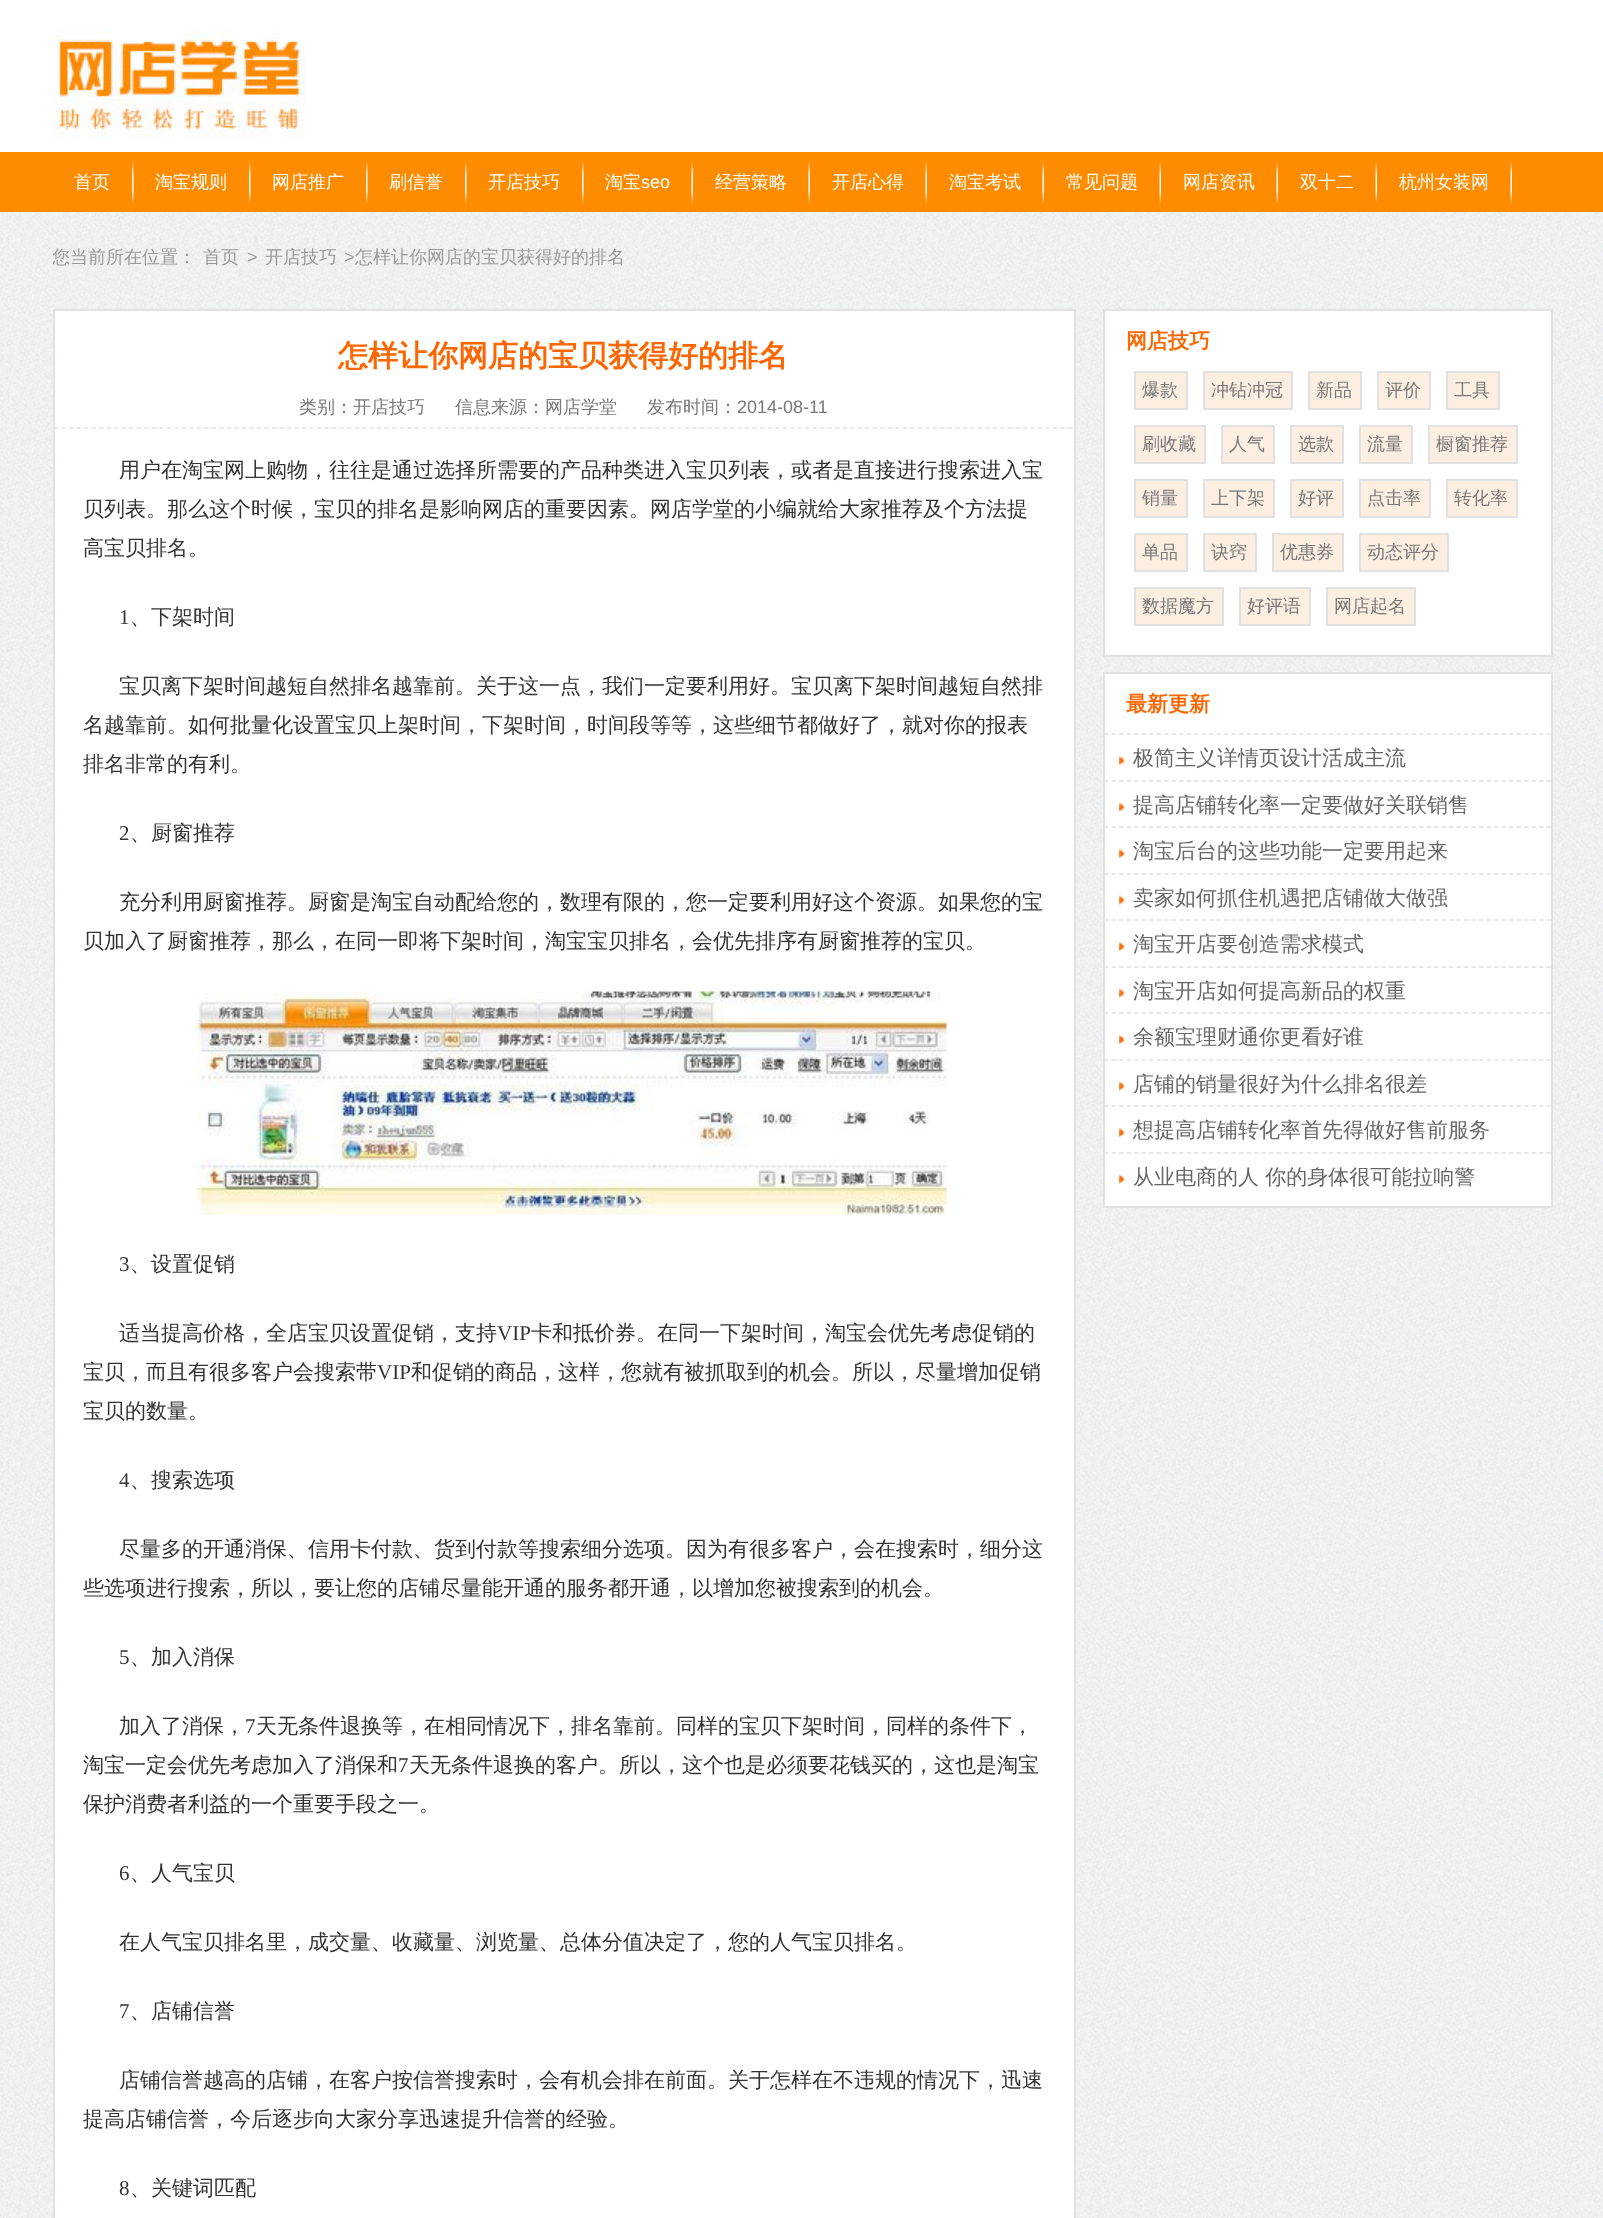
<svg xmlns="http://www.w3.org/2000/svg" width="1603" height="2218">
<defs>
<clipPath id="clip1"><rect x="53" y="212" width="1500" height="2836"/></clipPath>
</defs>
<rect width="100%" height="100%" fill="#fff"/>
<image x="0" y="212" width="1603" height="2006" href="media/1.png"/>
<image x="53" y="30" width="252" height="108" href="media/2.png"/>
<rect y="152" width="1603" height="60" fill="#ff8b00"/>
<image x="132" y="160" width="2" height="44" href="media/3.png"/>
<text x="74" y="188" style="font-family:WenQuanYi Zen Hei;font-size:18px;font-weight:500;fill:#fff">首页</text>
<image x="249" y="160" width="2" height="44" href="media/3.png"/>
<text x="155" y="188" style="font-family:WenQuanYi Zen Hei;font-size:18px;font-weight:500;fill:#fff">淘宝规则</text>
<image x="366" y="160" width="2" height="44" href="media/3.png"/>
<text x="272" y="188" style="font-family:WenQuanYi Zen Hei;font-size:18px;font-weight:500;fill:#fff">网店推广</text>
<image x="465" y="160" width="2" height="44" href="media/3.png"/>
<text x="389" y="188" style="font-family:WenQuanYi Zen Hei;font-size:18px;font-weight:500;fill:#fff">刷信誉</text>
<image x="582" y="160" width="2" height="44" href="media/3.png"/>
<text x="488" y="188" style="font-family:WenQuanYi Zen Hei;font-size:18px;font-weight:500;fill:#fff">开店技巧</text>
<image x="691" y="160" width="2" height="44" href="media/4.png"/>
<text x="605" y="188" style="font-family:WenQuanYi Zen Hei;font-size:18px;font-weight:500;fill:#fff">淘宝</text>
<text x="641" y="188" style="font-family:Liberation Sans;font-size:18px;fill:#fff">seo</text>
<image x="808" y="160" width="2" height="44" href="media/4.png"/>
<text x="715" y="188" style="font-family:WenQuanYi Zen Hei;font-size:18px;font-weight:500;fill:#fff">经营策略</text>
<image x="925" y="160" width="2" height="44" href="media/4.png"/>
<text x="832" y="188" style="font-family:WenQuanYi Zen Hei;font-size:18px;font-weight:500;fill:#fff">开店心得</text>
<image x="1042" y="160" width="2" height="44" href="media/4.png"/>
<text x="949" y="188" style="font-family:WenQuanYi Zen Hei;font-size:18px;font-weight:500;fill:#fff">淘宝考试</text>
<image x="1159" y="160" width="2" height="44" href="media/4.png"/>
<text x="1066" y="188" style="font-family:WenQuanYi Zen Hei;font-size:18px;font-weight:500;fill:#fff">常见问题</text>
<image x="1276" y="160" width="2" height="44" href="media/4.png"/>
<text x="1183" y="188" style="font-family:WenQuanYi Zen Hei;font-size:18px;font-weight:500;fill:#fff">网店资讯</text>
<image x="1375" y="160" width="2" height="44" href="media/4.png"/>
<text x="1300" y="188" style="font-family:WenQuanYi Zen Hei;font-size:18px;font-weight:500;fill:#fff">双十二</text>
<image x="1510" y="160" width="2" height="44" href="media/4.png"/>
<text x="1399" y="188" style="font-family:WenQuanYi Zen Hei;font-size:18px;font-weight:500;fill:#fff">杭州女装网</text>
<g clip-path="url(#clip1)">
<text x="52" y="263" style="font-family:WenQuanYi Zen Hei;font-size:18px;font-weight:500;fill:#999">您当前所在位置：</text>
</g>
<text x="203" y="263" style="font-family:WenQuanYi Zen Hei;font-size:18px;font-weight:500;fill:#999">首页</text>
<text x="247" y="263" style="font-family:Liberation Sans;font-size:18px;fill:#999">&gt;</text>
<text x="265" y="263" style="font-family:WenQuanYi Zen Hei;font-size:18px;font-weight:500;fill:#999">开店技巧</text>
<text x="344" y="263" style="font-family:Liberation Sans;font-size:18px;fill:#999">&gt;</text>
<text x="355" y="263" style="font-family:WenQuanYi Zen Hei;font-size:18px;font-weight:500;fill:#999">怎样让你网店的宝贝获得好的排名</text>
<rect x="54" y="310" width="1021" height="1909" fill="#fff" stroke="#e1e1e1" stroke-width="2"/>
<path d="M54 428h1020" fill="none" stroke="#e1e1e1" stroke-width="1.5" stroke-dasharray="4.5 3.01"/>
<text x="338" y="366" style="font-family:WenQuanYi Zen Hei;font-size:30px;font-weight:bold;fill:#f60">怎样让你网店的宝贝获得好的排名</text>
<text x="299" y="413" style="font-family:WenQuanYi Zen Hei;font-size:18px;font-weight:500;fill:#787878">类别：开店技巧</text>
<text x="455" y="413" style="font-family:WenQuanYi Zen Hei;font-size:18px;font-weight:500;fill:#787878">信息来源：网店学堂</text>
<text x="647" y="413" style="font-family:WenQuanYi Zen Hei;font-size:18px;font-weight:500;fill:#787878">发布时间：</text>
<text x="737" y="413" style="font-family:Liberation Sans;font-size:18px;fill:#787878">2014-08-11</text>
<text x="119" y="477" style="font-family:WenQuanYi Zen Hei;font-size:21px;font-weight:500;fill:#333">用户在淘宝网上购物，往往是通过选择所需要的产品种类进入宝贝列表，或者是直接进行搜索进入宝</text>
<text x="83" y="516" style="font-family:WenQuanYi Zen Hei;font-size:21px;font-weight:500;fill:#333">贝列表。那么这个时候，宝贝的排名是影响网店的重要因素。网店学堂的小编就给大家推荐及个方法提</text>
<text x="83" y="555" style="font-family:WenQuanYi Zen Hei;font-size:21px;font-weight:500;fill:#333">高宝贝排名。</text>
<text x="119" y="624" style="font-family:Liberation Serif;font-size:21px;fill:#333">1</text>
<text x="130" y="624" style="font-family:WenQuanYi Zen Hei;font-size:21px;font-weight:500;fill:#333">、下架时间</text>
<text x="119" y="693" style="font-family:WenQuanYi Zen Hei;font-size:21px;font-weight:500;fill:#333">宝贝离下架时间越短自然排名越靠前。关于这一点，我们一定要利用好。宝贝离下架时间越短自然排</text>
<text x="83" y="732" style="font-family:WenQuanYi Zen Hei;font-size:21px;font-weight:500;fill:#333">名越靠前。如何批量化设置宝贝上架时间，下架时间，时间段等等，这些细节都做好了，就对你的报表</text>
<text x="83" y="771" style="font-family:WenQuanYi Zen Hei;font-size:21px;font-weight:500;fill:#333">排名非常的有利。</text>
<text x="119" y="840" style="font-family:Liberation Serif;font-size:21px;fill:#333">2</text>
<text x="130" y="840" style="font-family:WenQuanYi Zen Hei;font-size:21px;font-weight:500;fill:#333">、厨窗推荐</text>
<text x="119" y="909" style="font-family:WenQuanYi Zen Hei;font-size:21px;font-weight:500;fill:#333">充分利用厨窗推荐。厨窗是淘宝自动配给您的，数理有限的，您一定要利用好这个资源。如果您的宝</text>
<text x="83" y="948" style="font-family:WenQuanYi Zen Hei;font-size:21px;font-weight:500;fill:#333">贝加入了厨窗推荐，那么，在同一即将下架时间，淘宝宝贝排名，会优先排序有厨窗推荐的宝贝。</text>
<image x="196" y="991" width="751" height="224" href="media/5.png"/>
<text x="119" y="1271" style="font-family:Liberation Serif;font-size:21px;fill:#333">3</text>
<text x="130" y="1271" style="font-family:WenQuanYi Zen Hei;font-size:21px;font-weight:500;fill:#333">、设置促销</text>
<text x="119" y="1340" style="font-family:WenQuanYi Zen Hei;font-size:21px;font-weight:500;fill:#333">适当提高价格，全店宝贝设置促销，支持</text>
<text x="497" y="1340" style="font-family:Liberation Serif;font-size:21px;fill:#333">VIP</text>
<text x="531" y="1340" style="font-family:WenQuanYi Zen Hei;font-size:21px;font-weight:500;fill:#333">卡和抵价券。在同一下架时间，淘宝会优先考虑促销的</text>
<text x="83" y="1379" style="font-family:WenQuanYi Zen Hei;font-size:21px;font-weight:500;fill:#333">宝贝，而且有很多客户会搜索带</text>
<text x="377" y="1379" style="font-family:Liberation Serif;font-size:21px;fill:#333">VIP</text>
<text x="411" y="1379" style="font-family:WenQuanYi Zen Hei;font-size:21px;font-weight:500;fill:#333">和促销的商品，这样，您就有被抓取到的机会。所以，尽量增加促销</text>
<text x="83" y="1418" style="font-family:WenQuanYi Zen Hei;font-size:21px;font-weight:500;fill:#333">宝贝的数量。</text>
<text x="119" y="1487" style="font-family:Liberation Serif;font-size:21px;fill:#333">4</text>
<text x="130" y="1487" style="font-family:WenQuanYi Zen Hei;font-size:21px;font-weight:500;fill:#333">、搜索选项</text>
<text x="119" y="1556" style="font-family:WenQuanYi Zen Hei;font-size:21px;font-weight:500;fill:#333">尽量多的开通消保、信用卡付款、货到付款等搜索细分选项。因为有很多客户，会在搜索时，细分这</text>
<text x="83" y="1595" style="font-family:WenQuanYi Zen Hei;font-size:21px;font-weight:500;fill:#333">些选项进行搜索，所以，要让您的店铺尽量能开通的服务都开通，以增加您被搜索到的机会。</text>
<text x="119" y="1664" style="font-family:Liberation Serif;font-size:21px;fill:#333">5</text>
<text x="130" y="1664" style="font-family:WenQuanYi Zen Hei;font-size:21px;font-weight:500;fill:#333">、加入消保</text>
<text x="119" y="1733" style="font-family:WenQuanYi Zen Hei;font-size:21px;font-weight:500;fill:#333">加入了消保，</text>
<text x="245" y="1733" style="font-family:Liberation Serif;font-size:21px;fill:#333">7</text>
<text x="256" y="1733" style="font-family:WenQuanYi Zen Hei;font-size:21px;font-weight:500;fill:#333">天无条件退换等，在相同情况下，排名靠前。同样的宝贝下架时间，同样的条件下，</text>
<text x="83" y="1772" style="font-family:WenQuanYi Zen Hei;font-size:21px;font-weight:500;fill:#333">淘宝一定会优先考虑加入了消保和</text>
<text x="398" y="1772" style="font-family:Liberation Serif;font-size:21px;fill:#333">7</text>
<text x="409" y="1772" style="font-family:WenQuanYi Zen Hei;font-size:21px;font-weight:500;fill:#333">天无条件退换的客户。所以，这个也是必须要花钱买的，这也是淘宝</text>
<text x="83" y="1811" style="font-family:WenQuanYi Zen Hei;font-size:21px;font-weight:500;fill:#333">保护消费者利益的一个重要手段之一。</text>
<text x="119" y="1880" style="font-family:Liberation Serif;font-size:21px;fill:#333">6</text>
<text x="130" y="1880" style="font-family:WenQuanYi Zen Hei;font-size:21px;font-weight:500;fill:#333">、人气宝贝</text>
<text x="119" y="1949" style="font-family:WenQuanYi Zen Hei;font-size:21px;font-weight:500;fill:#333">在人气宝贝排名里，成交量、收藏量、浏览量、总体分值决定了，您的人气宝贝排名。</text>
<text x="119" y="2018" style="font-family:Liberation Serif;font-size:21px;fill:#333">7</text>
<text x="130" y="2018" style="font-family:WenQuanYi Zen Hei;font-size:21px;font-weight:500;fill:#333">、店铺信誉</text>
<text x="119" y="2087" style="font-family:WenQuanYi Zen Hei;font-size:21px;font-weight:500;fill:#333">店铺信誉越高的店铺，在客户按信誉搜索时，会有机会排在前面。关于怎样在不违规的情况下，迅速</text>
<text x="83" y="2126" style="font-family:WenQuanYi Zen Hei;font-size:21px;font-weight:500;fill:#333">提高店铺信誉，今后逐步向大家分享迅速提升信誉的经验。</text>
<text x="119" y="2195" style="font-family:Liberation Serif;font-size:21px;fill:#333">8</text>
<text x="130" y="2195" style="font-family:WenQuanYi Zen Hei;font-size:21px;font-weight:500;fill:#333">、关键词匹配</text>
<rect x="1104" y="310" width="448" height="346" fill="#fff" stroke="#e1e1e1" stroke-width="2"/>
<text x="1126" y="348" style="font-family:WenQuanYi Zen Hei;font-size:21px;font-weight:bold;fill:#f60">网店技巧</text>
<rect x="1135" y="372" width="52" height="37" fill="#fcefe2" stroke="#e1e1e1" stroke-width="2"/>
<text x="1142" y="396" style="font-family:WenQuanYi Zen Hei;font-size:18px;font-weight:500;fill:#787878">爆款</text>
<rect x="1204" y="372" width="88" height="37" fill="#fcefe2" stroke="#e1e1e1" stroke-width="2"/>
<text x="1211" y="396" style="font-family:WenQuanYi Zen Hei;font-size:18px;font-weight:500;fill:#787878">冲钻冲冠</text>
<rect x="1309" y="372" width="52" height="37" fill="#fcefe2" stroke="#e1e1e1" stroke-width="2"/>
<text x="1316" y="396" style="font-family:WenQuanYi Zen Hei;font-size:18px;font-weight:500;fill:#787878">新品</text>
<rect x="1378" y="372" width="52" height="37" fill="#fcefe2" stroke="#e1e1e1" stroke-width="2"/>
<text x="1385" y="396" style="font-family:WenQuanYi Zen Hei;font-size:18px;font-weight:500;fill:#787878">评价</text>
<rect x="1447" y="372" width="52" height="37" fill="#fcefe2" stroke="#e1e1e1" stroke-width="2"/>
<text x="1454" y="396" style="font-family:WenQuanYi Zen Hei;font-size:18px;font-weight:500;fill:#787878">工具</text>
<rect x="1135" y="426" width="70" height="37" fill="#fcefe2" stroke="#e1e1e1" stroke-width="2"/>
<text x="1142" y="450" style="font-family:WenQuanYi Zen Hei;font-size:18px;font-weight:500;fill:#787878">刷收藏</text>
<rect x="1222" y="426" width="52" height="37" fill="#fcefe2" stroke="#e1e1e1" stroke-width="2"/>
<text x="1229" y="450" style="font-family:WenQuanYi Zen Hei;font-size:18px;font-weight:500;fill:#787878">人气</text>
<rect x="1291" y="426" width="52" height="37" fill="#fcefe2" stroke="#e1e1e1" stroke-width="2"/>
<text x="1298" y="450" style="font-family:WenQuanYi Zen Hei;font-size:18px;font-weight:500;fill:#787878">选款</text>
<rect x="1360" y="426" width="52" height="37" fill="#fcefe2" stroke="#e1e1e1" stroke-width="2"/>
<text x="1367" y="450" style="font-family:WenQuanYi Zen Hei;font-size:18px;font-weight:500;fill:#787878">流量</text>
<rect x="1429" y="426" width="88" height="37" fill="#fcefe2" stroke="#e1e1e1" stroke-width="2"/>
<text x="1436" y="450" style="font-family:WenQuanYi Zen Hei;font-size:18px;font-weight:500;fill:#787878">橱窗推荐</text>
<rect x="1135" y="480" width="52" height="37" fill="#fcefe2" stroke="#e1e1e1" stroke-width="2"/>
<text x="1142" y="504" style="font-family:WenQuanYi Zen Hei;font-size:18px;font-weight:500;fill:#787878">销量</text>
<rect x="1204" y="480" width="70" height="37" fill="#fcefe2" stroke="#e1e1e1" stroke-width="2"/>
<text x="1211" y="504" style="font-family:WenQuanYi Zen Hei;font-size:18px;font-weight:500;fill:#787878">上下架</text>
<rect x="1291" y="480" width="52" height="37" fill="#fcefe2" stroke="#e1e1e1" stroke-width="2"/>
<text x="1298" y="504" style="font-family:WenQuanYi Zen Hei;font-size:18px;font-weight:500;fill:#787878">好评</text>
<rect x="1360" y="480" width="70" height="37" fill="#fcefe2" stroke="#e1e1e1" stroke-width="2"/>
<text x="1367" y="504" style="font-family:WenQuanYi Zen Hei;font-size:18px;font-weight:500;fill:#787878">点击率</text>
<rect x="1447" y="480" width="70" height="37" fill="#fcefe2" stroke="#e1e1e1" stroke-width="2"/>
<text x="1454" y="504" style="font-family:WenQuanYi Zen Hei;font-size:18px;font-weight:500;fill:#787878">转化率</text>
<rect x="1135" y="534" width="52" height="37" fill="#fcefe2" stroke="#e1e1e1" stroke-width="2"/>
<text x="1142" y="558" style="font-family:WenQuanYi Zen Hei;font-size:18px;font-weight:500;fill:#787878">单品</text>
<rect x="1204" y="534" width="52" height="37" fill="#fcefe2" stroke="#e1e1e1" stroke-width="2"/>
<text x="1211" y="558" style="font-family:WenQuanYi Zen Hei;font-size:18px;font-weight:500;fill:#787878">诀窍</text>
<rect x="1273" y="534" width="70" height="37" fill="#fcefe2" stroke="#e1e1e1" stroke-width="2"/>
<text x="1280" y="558" style="font-family:WenQuanYi Zen Hei;font-size:18px;font-weight:500;fill:#787878">优惠券</text>
<rect x="1360" y="534" width="88" height="37" fill="#fcefe2" stroke="#e1e1e1" stroke-width="2"/>
<text x="1367" y="558" style="font-family:WenQuanYi Zen Hei;font-size:18px;font-weight:500;fill:#787878">动态评分</text>
<rect x="1135" y="588" width="88" height="37" fill="#fcefe2" stroke="#e1e1e1" stroke-width="2"/>
<text x="1142" y="612" style="font-family:WenQuanYi Zen Hei;font-size:18px;font-weight:500;fill:#787878">数据魔方</text>
<rect x="1240" y="588" width="70" height="37" fill="#fcefe2" stroke="#e1e1e1" stroke-width="2"/>
<text x="1247" y="612" style="font-family:WenQuanYi Zen Hei;font-size:18px;font-weight:500;fill:#787878">好评语</text>
<rect x="1327" y="588" width="88" height="37" fill="#fcefe2" stroke="#e1e1e1" stroke-width="2"/>
<text x="1334" y="612" style="font-family:WenQuanYi Zen Hei;font-size:18px;font-weight:500;fill:#787878">网店起名</text>
<rect x="1104" y="673" width="448" height="534" fill="#fff" stroke="#e1e1e1" stroke-width="2"/>
<text x="1126" y="711" style="font-family:WenQuanYi Zen Hei;font-size:21px;font-weight:bold;fill:#f60">最新更新</text>
<image x="1119" y="756" width="6" height="9" href="media/6.png"/>
<path d="M1104 734h447" fill="none" stroke="#e1e1e1" stroke-width="1.5" stroke-dasharray="4.5 3"/>
<text x="1133" y="765" style="font-family:WenQuanYi Zen Hei;font-size:21px;font-weight:500;fill:#666">极简主义详情页设计活成主流</text>
<image x="1119" y="802" width="6" height="10" href="media/7.png"/>
<path d="M1104 781h447" fill="none" stroke="#e1e1e1" stroke-width="1.5" stroke-dasharray="4.5 3"/>
<text x="1133" y="812" style="font-family:WenQuanYi Zen Hei;font-size:21px;font-weight:500;fill:#666">提高店铺转化率一定要做好关联销售</text>
<image x="1119" y="849" width="6" height="9" href="media/6.png"/>
<path d="M1104 827h447" fill="none" stroke="#e1e1e1" stroke-width="1.5" stroke-dasharray="4.5 3"/>
<text x="1133" y="858" style="font-family:WenQuanYi Zen Hei;font-size:21px;font-weight:500;fill:#666">淘宝后台的这些功能一定要用起来</text>
<image x="1119" y="895" width="6" height="10" href="media/7.png"/>
<path d="M1104 874h447" fill="none" stroke="#e1e1e1" stroke-width="1.5" stroke-dasharray="4.5 3"/>
<text x="1133" y="905" style="font-family:WenQuanYi Zen Hei;font-size:21px;font-weight:500;fill:#666">卖家如何抓住机遇把店铺做大做强</text>
<image x="1119" y="942" width="6" height="9" href="media/6.png"/>
<path d="M1104 920h447" fill="none" stroke="#e1e1e1" stroke-width="1.5" stroke-dasharray="4.5 3"/>
<text x="1133" y="951" style="font-family:WenQuanYi Zen Hei;font-size:21px;font-weight:500;fill:#666">淘宝开店要创造需求模式</text>
<image x="1119" y="988" width="6" height="10" href="media/7.png"/>
<path d="M1104 967h447" fill="none" stroke="#e1e1e1" stroke-width="1.5" stroke-dasharray="4.5 3"/>
<text x="1133" y="998" style="font-family:WenQuanYi Zen Hei;font-size:21px;font-weight:500;fill:#666">淘宝开店如何提高新品的权重</text>
<image x="1119" y="1035" width="6" height="9" href="media/6.png"/>
<path d="M1104 1013h447" fill="none" stroke="#e1e1e1" stroke-width="1.5" stroke-dasharray="4.5 3"/>
<text x="1133" y="1044" style="font-family:WenQuanYi Zen Hei;font-size:21px;font-weight:500;fill:#666">余额宝理财通你更看好谁</text>
<image x="1119" y="1081" width="6" height="10" href="media/7.png"/>
<path d="M1104 1060h447" fill="none" stroke="#e1e1e1" stroke-width="1.5" stroke-dasharray="4.5 3"/>
<text x="1133" y="1091" style="font-family:WenQuanYi Zen Hei;font-size:21px;font-weight:500;fill:#666">店铺的销量很好为什么排名很差</text>
<image x="1119" y="1128" width="6" height="9" href="media/6.png"/>
<path d="M1104 1106h447" fill="none" stroke="#e1e1e1" stroke-width="1.5" stroke-dasharray="4.5 3"/>
<text x="1133" y="1137" style="font-family:WenQuanYi Zen Hei;font-size:21px;font-weight:500;fill:#666">想提高店铺转化率首先得做好售前服务</text>
<image x="1119" y="1174" width="6" height="10" href="media/7.png"/>
<path d="M1104 1153h447" fill="none" stroke="#e1e1e1" stroke-width="1.5" stroke-dasharray="4.5 3"/>
<text x="1133" y="1184" style="font-family:WenQuanYi Zen Hei;font-size:21px;font-weight:500;fill:#666">从业电商的人 你的身体很可能拉响警</text>
</svg>
